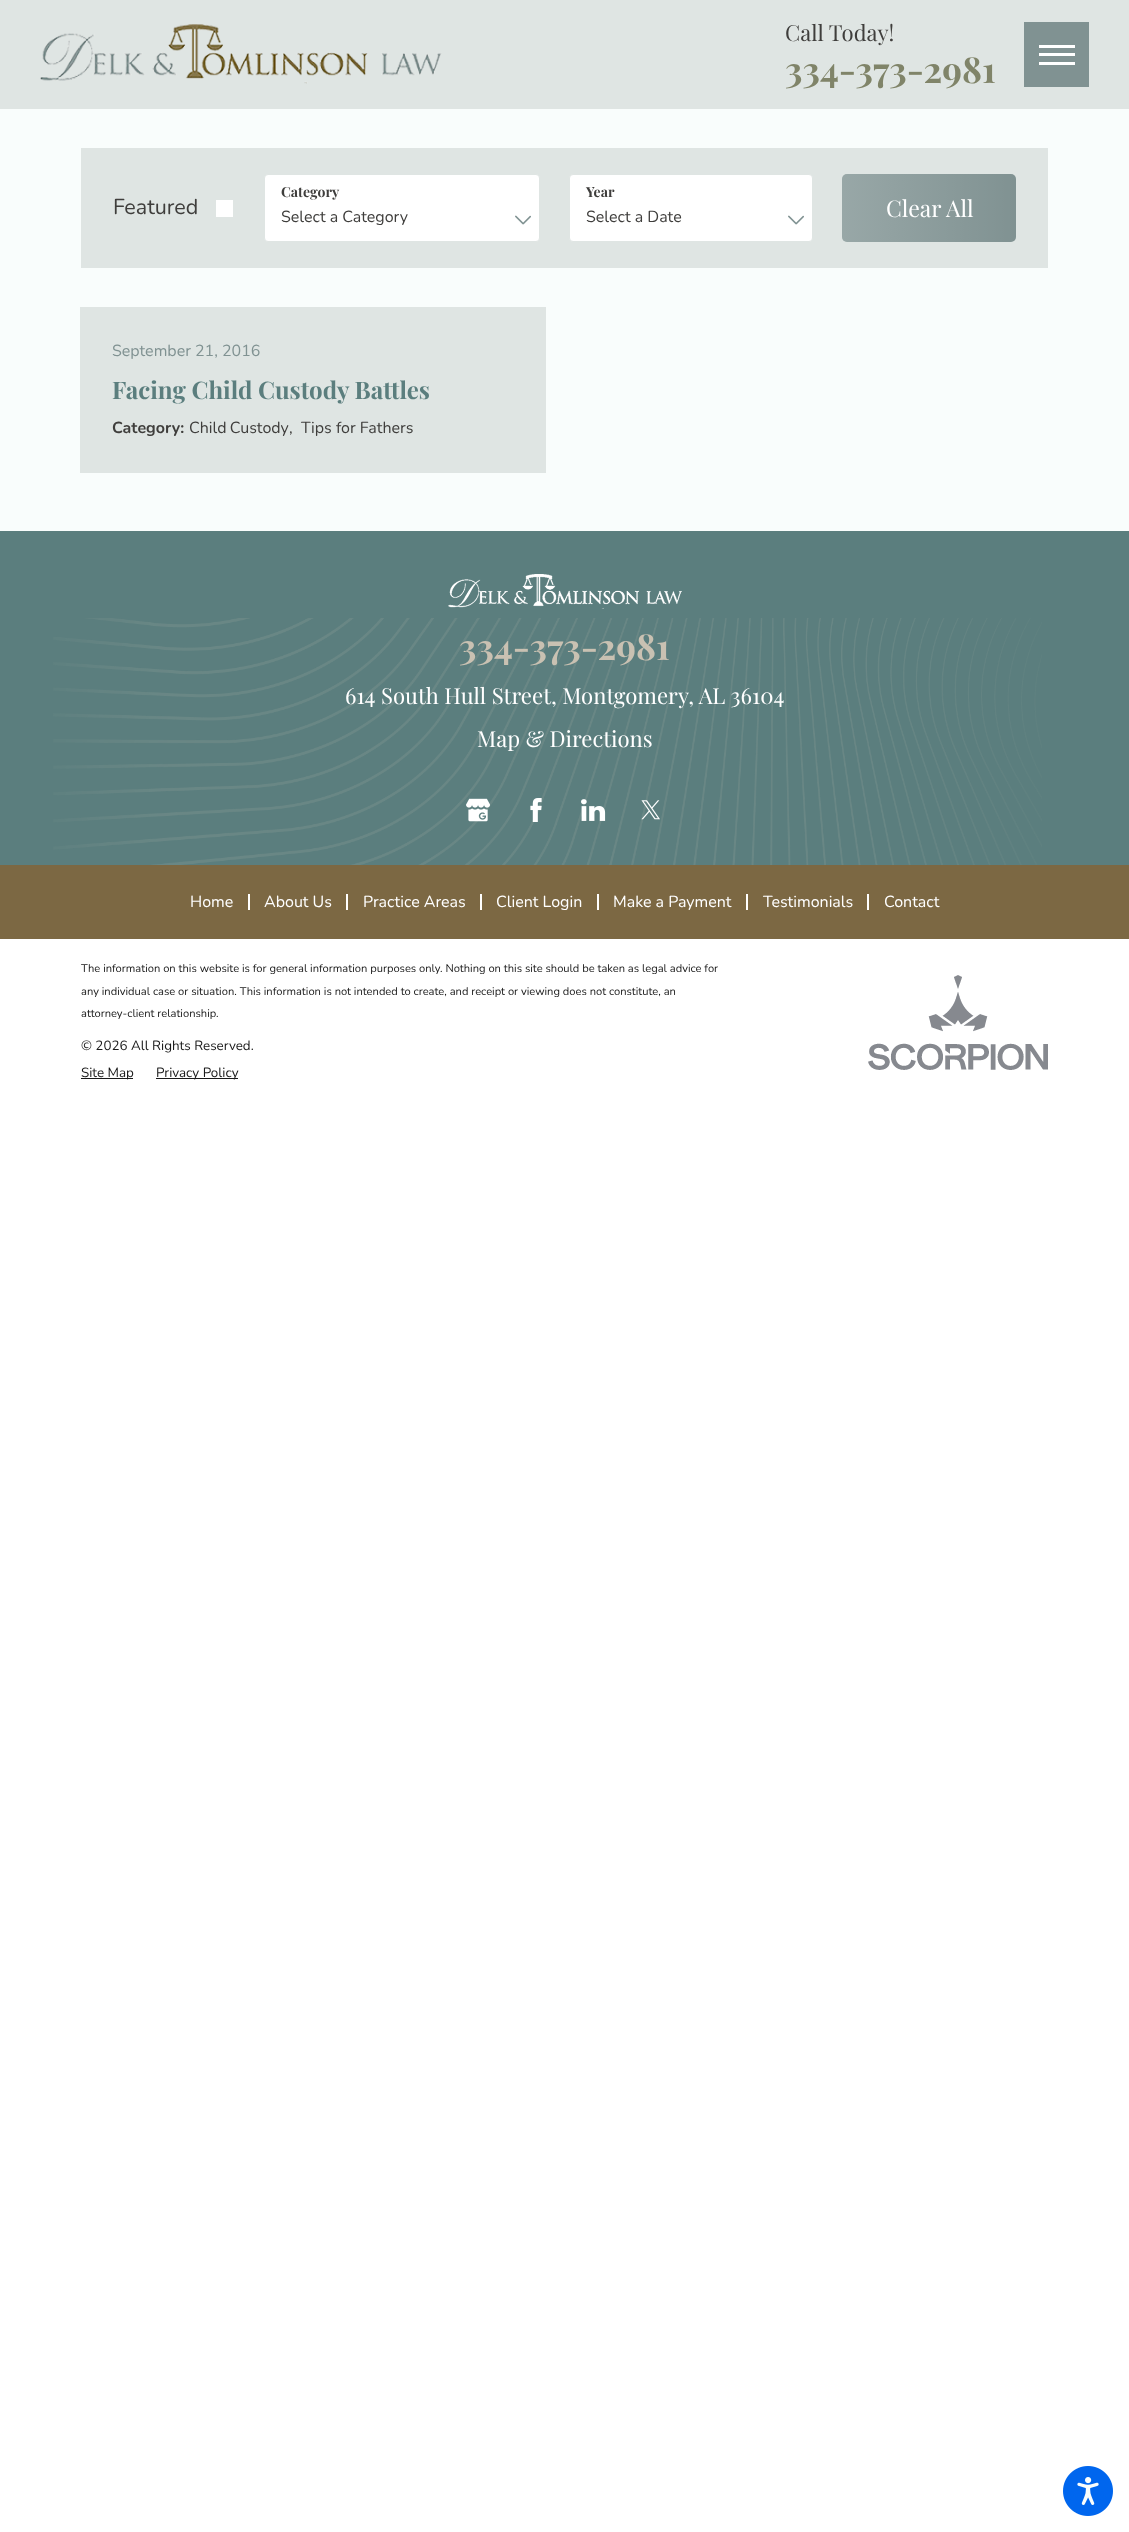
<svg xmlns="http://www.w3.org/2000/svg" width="1129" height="2532">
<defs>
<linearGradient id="g1" gradientUnits="userSpaceOnUse" x1="842" y1="208" x2="1016" y2="208"><stop offset="0" stop-color="#f9fdfc" stop-opacity="0.2"/><stop offset="1" stop-color="#f9fdfc" stop-opacity="0"/></linearGradient>
</defs>
<rect width="100%" height="100%" fill="#fff"/>
<rect width="1129" height="109" fill="#dfe5e3"/>
<image x="40" y="24" width="402" height="60" href="media/1.png"/>
<text x="785" y="41" style="font-family:Playfair Display;font-size:22.1px;fill:#3f3e3c">Call Today!</text>
<text x="785" y="83" style="font-family:Playfair Display;font-size:35.75px;font-weight:bold;fill:#808469">334-373-2981</text>
<rect x="1024" y="22" width="65" height="65" fill="#809292"/>
<rect x="1039" y="45" width="36" height="3" fill="#fff"/>
<rect x="1039" y="53" width="36" height="3" fill="#fff"/>
<rect x="1039" y="62" width="36" height="3" fill="#fff"/>
<image x="1063" y="2466" width="50" height="50" href="media/2.png"/>
<rect y="109" width="1129" height="422" fill="#f9fdfc"/>
<rect x="81" y="148" width="967" height="120" fill="#dfe5e3"/>
<text x="113" y="214" style="font-family:Nunito;font-size:21.5px;fill:#3f3e3c">Featured</text>
<rect x="216" y="200" width="17" height="17" fill="#fff"/>
<rect x="264.5" y="174.5" width="275" height="67" rx="3.5" fill="#fff" stroke="#dfe5e3"/>
<text x="281" y="197" style="font-family:Playfair Display;font-size:14px;font-weight:bold;fill:#3f3e3c">Category</text>
<text x="281" y="222" style="font-family:Nunito;font-size:16px;fill:#3f3e3c">Select a Category</text>
<image x="515" y="215" width="16" height="10" href="media/3.png"/>
<rect x="569.5" y="174.5" width="243" height="67" rx="3.5" fill="#fff" stroke="#dfe5e3"/>
<text x="586" y="197" style="font-family:Playfair Display;font-size:14px;font-weight:bold;fill:#3f3e3c">Year</text>
<text x="586" y="222" style="font-family:Nunito;font-size:16px;fill:#3f3e3c">Select a Date</text>
<image x="788" y="215" width="16" height="10" href="media/3.png"/>
<rect x="842" y="174" width="174" height="68" rx="5" fill="#809292"/>
<rect x="842" y="174" width="174" height="68" rx="5" fill="url(#g1)"/>
<text x="886" y="217" style="font-family:Playfair Display;font-size:23px;fill:#fff">Clear All</text>
<rect x="80" y="307" width="466" height="166" fill="#dfe5e3"/>
<text x="112" y="356" style="font-family:Nunito;font-size:16px;fill:#809292">September 21, 2016</text>
<text x="112" y="399" style="font-family:Playfair Display;font-size:24.1px;font-weight:bold;fill:#5b7e7e">Facing Child Custody Battles</text>
<text x="112" y="433" style="font-family:Nunito;font-size:16px;font-weight:bold;fill:#3f3e3c">Category:</text>
<text x="189" y="433" word-spacing="-1" style="font-family:Nunito;font-size:16px;fill:#3f3e3c">Child Custody</text>
<text x="289" y="433" style="font-family:Nunito;font-size:16px;fill:#3f3e3c">,</text>
<text x="301" y="433" style="font-family:Nunito;font-size:16px;fill:#3f3e3c">Tips for Fathers</text>
<rect y="865" width="1129" height="74" fill="#7c6843"/>
<rect y="531" width="1129" height="334" fill="#5b7e7e"/>
<image x="53" y="618" width="989" height="247" href="media/4.png"/>
<image x="448" y="574" width="234" height="35" href="media/5.png"/>
<text x="459" y="660" style="font-family:Playfair Display;font-size:35.75px;font-weight:bold;fill:#c9c1b2">334-373-2981</text>
<text x="345" y="704" style="font-family:Playfair Display;font-size:22.1px;fill:#fff">614 South Hull Street, Montgomery, AL 36104</text>
<text x="477" y="747" style="font-family:Playfair Display;font-size:22.1px;fill:#fff">Map &amp; Directions</text>
<image x="466" y="798" width="24" height="24" href="media/6.png"/>
<image x="530" y="798" width="12" height="24" href="media/7.png"/>
<image x="581" y="799" width="25" height="22" href="media/8.png"/>
<image x="641" y="800" width="19" height="20" href="media/9.png"/>
<text x="190" y="907" style="font-family:Nunito;font-size:16px;fill:#fff">Home</text>
<rect x="248" y="894" width="2" height="16" fill="#fff"/>
<text x="264" y="907" style="font-family:Nunito;font-size:16px;fill:#fff">About Us</text>
<rect x="346" y="894" width="2" height="16" fill="#fff"/>
<text x="363" y="907" style="font-family:Nunito;font-size:16px;fill:#fff">Practice Areas</text>
<rect x="480" y="894" width="2" height="16" fill="#fff"/>
<text x="496" y="907" style="font-family:Nunito;font-size:16px;fill:#fff">Client Login</text>
<rect x="597" y="894" width="2" height="16" fill="#fff"/>
<text x="613" y="907" style="font-family:Nunito;font-size:16px;fill:#fff">Make a Payment</text>
<rect x="746" y="894" width="2" height="16" fill="#fff"/>
<text x="763" y="907" style="font-family:Nunito;font-size:16px;fill:#fff">Testimonials</text>
<rect x="867" y="894" width="2" height="16" fill="#fff"/>
<text x="884" y="907" style="font-family:Nunito;font-size:16px;fill:#fff">Contact</text>
<text x="81" y="972" style="font-family:Nunito;font-size:11.15px;fill:#191919">The information on this website is for general information purposes only. Nothing on this site should be taken as legal advice for</text>
<text x="81" y="995" style="font-family:Nunito;font-size:11.15px;fill:#191919">any individual case or situation. This information is not intended to create, and receipt or viewing does not constitute, an</text>
<text x="81" y="1017" style="font-family:Nunito;font-size:11.15px;fill:#191919">attorney-client relationship.</text>
<text x="81" y="1050" style="font-family:Nunito;font-size:13.4px;fill:#191919">© 2026 All Rights Reserved.</text>
<rect x="81" y="1078" width="52" height="1" fill="#191919"/>
<text x="81" y="1077" style="font-family:Nunito;font-size:13.4px;fill:#191919">Site Map</text>
<rect x="156" y="1078" width="82" height="1" fill="#191919"/>
<text x="156" y="1077" style="font-family:Nunito;font-size:13.4px;fill:#191919">Privacy Policy</text>
<image x="868" y="975" width="180" height="95" href="media/10.png"/>
</svg>
